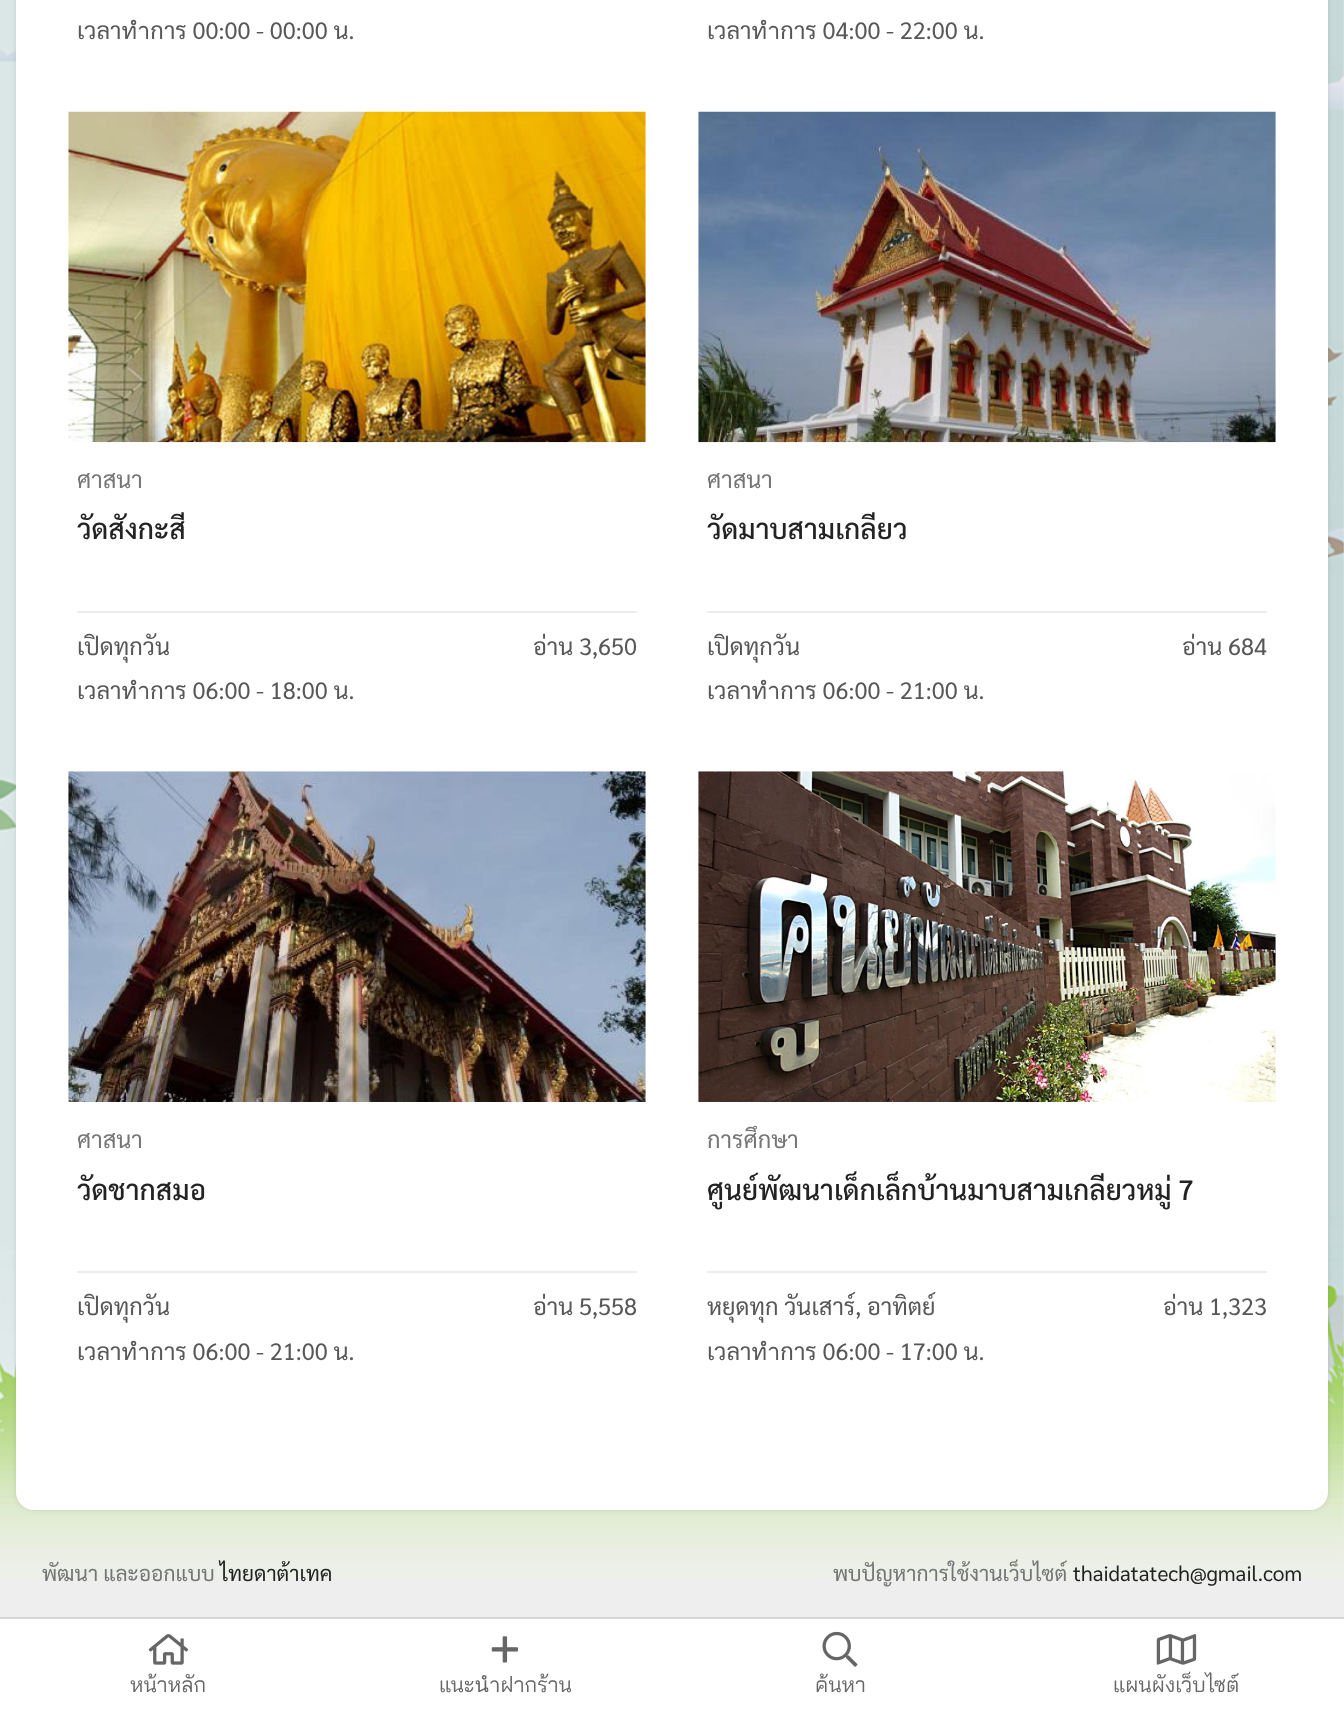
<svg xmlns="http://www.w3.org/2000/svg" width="1344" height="1711">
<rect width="100%" height="100%" fill="#eee"/>
<image x="0" y="0" width="1344" height="1578" href="media/1.png"/>
<rect x="16" y="-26" width="1312" height="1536" rx="18" fill="#0000001a" filter="blur(2.5px)"/>
<rect x="16" y="-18" width="1312" height="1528" rx="18" fill="#fff"/>
<text x="77" y="39" style="font-family:Sarabun;font-size:23.6px;fill:#575757">เวลาทำการ 00:00 - 00:00 น.</text>
<text x="707" y="39" style="font-family:Sarabun;font-size:23.6px;fill:#575757">เวลาทำการ 04:00 - 22:00 น.</text>
<image x="68" y="111" width="578" height="332" href="media/2.png"/>
<text x="77" y="488" style="font-family:Sarabun;font-size:23.6px;fill:#757575">ศาสนา</text>
<text x="77" y="539" style="font-family:Sarabun;font-size:28px;font-weight:500;fill:#232323">วัดสังกะสี</text>
<rect x="77" y="611" width="560" height="2" fill="#ededed"/>
<text x="77" y="655" style="font-family:Sarabun;font-size:23.6px;fill:#575757">เปิดทุกวัน</text>
<text x="77" y="699" style="font-family:Sarabun;font-size:23.6px;fill:#575757">เวลาทำการ 06:00 - 18:00 น.</text>
<text x="533" y="655" style="font-family:Sarabun;font-size:23.6px;fill:#575757">อ่าน 3,650</text>
<image x="698" y="111" width="578" height="332" href="media/3.png"/>
<text x="707" y="488" style="font-family:Sarabun;font-size:23.6px;fill:#757575">ศาสนา</text>
<text x="707" y="539" style="font-family:Sarabun;font-size:28px;font-weight:500;fill:#232323">วัดมาบสามเกลียว</text>
<rect x="707" y="611" width="560" height="2" fill="#ededed"/>
<text x="707" y="655" style="font-family:Sarabun;font-size:23.6px;fill:#575757">เปิดทุกวัน</text>
<text x="707" y="699" style="font-family:Sarabun;font-size:23.6px;fill:#575757">เวลาทำการ 06:00 - 21:00 น.</text>
<text x="1182" y="655" style="font-family:Sarabun;font-size:23.6px;fill:#575757">อ่าน 684</text>
<image x="68" y="771" width="578" height="331" href="media/4.png"/>
<text x="77" y="1148" style="font-family:Sarabun;font-size:23.6px;fill:#757575">ศาสนา</text>
<text x="77" y="1200" style="font-family:Sarabun;font-size:28px;font-weight:500;fill:#232323">วัดชากสมอ</text>
<rect x="77" y="1271" width="560" height="2" fill="#ededed"/>
<text x="77" y="1315" style="font-family:Sarabun;font-size:23.6px;fill:#575757">เปิดทุกวัน</text>
<text x="77" y="1360" style="font-family:Sarabun;font-size:23.6px;fill:#575757">เวลาทำการ 06:00 - 21:00 น.</text>
<text x="533" y="1315" style="font-family:Sarabun;font-size:23.6px;fill:#575757">อ่าน 5,558</text>
<image x="698" y="771" width="578" height="331" href="media/5.png"/>
<text x="707" y="1148" style="font-family:Sarabun;font-size:23.6px;fill:#757575">การศึกษา</text>
<text x="707" y="1200" style="font-family:Sarabun;font-size:28px;font-weight:500;fill:#232323">ศูนย์พัฒนาเด็กเล็กบ้านมาบสามเกลียวหมู่ 7</text>
<rect x="707" y="1271" width="560" height="2" fill="#ededed"/>
<text x="707" y="1315" style="font-family:Sarabun;font-size:23.6px;fill:#575757">หยุดทุก วันเสาร์, อาทิตย์</text>
<text x="707" y="1360" style="font-family:Sarabun;font-size:23.6px;fill:#575757">เวลาทำการ 06:00 - 17:00 น.</text>
<text x="1163" y="1315" style="font-family:Sarabun;font-size:23.6px;fill:#575757">อ่าน 1,323</text>
<text x="42" y="1581" style="font-family:Sarabun;font-size:21px;fill:#757575">พัฒนา และออกแบบ</text>
<text x="220" y="1581" style="font-family:Sarabun;font-size:21px;fill:#232323">ไทยดาต้าเทค</text>
<text x="833" y="1581" style="font-family:Sarabun;font-size:21px;fill:#757575">พบปัญหาการใช้งานเว็บไซต์</text>
<text x="1073" y="1581" style="font-family:Sarabun;font-size:21px;fill:#232323">thaidatatech@gmail.com</text>
<rect x="-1" y="1618" width="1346" height="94" fill="none" stroke="#d6d5d5" stroke-width="2"/>
<rect y="1619" width="1344" height="92" fill="#fff"/>
<image x="148" y="1634" width="41" height="31" href="media/6.png"/>
<text x="130" y="1692" style="font-family:Bai Jamjuree;font-size:21px;fill:#666">หน้าหลัก</text>
<image x="491" y="1636" width="27" height="27" href="media/7.png"/>
<text x="439" y="1692" style="font-family:Bai Jamjuree;font-size:21px;fill:#666">แนะนำฝากร้าน</text>
<image x="822" y="1631" width="36" height="36" href="media/8.png"/>
<text x="815" y="1692" style="font-family:Bai Jamjuree;font-size:21px;fill:#666">ค้นหา</text>
<image x="1156" y="1634" width="41" height="31" href="media/9.png"/>
<text x="1113" y="1692" style="font-family:Bai Jamjuree;font-size:21px;fill:#666">แผนผังเว็บไซต์</text>
</svg>
